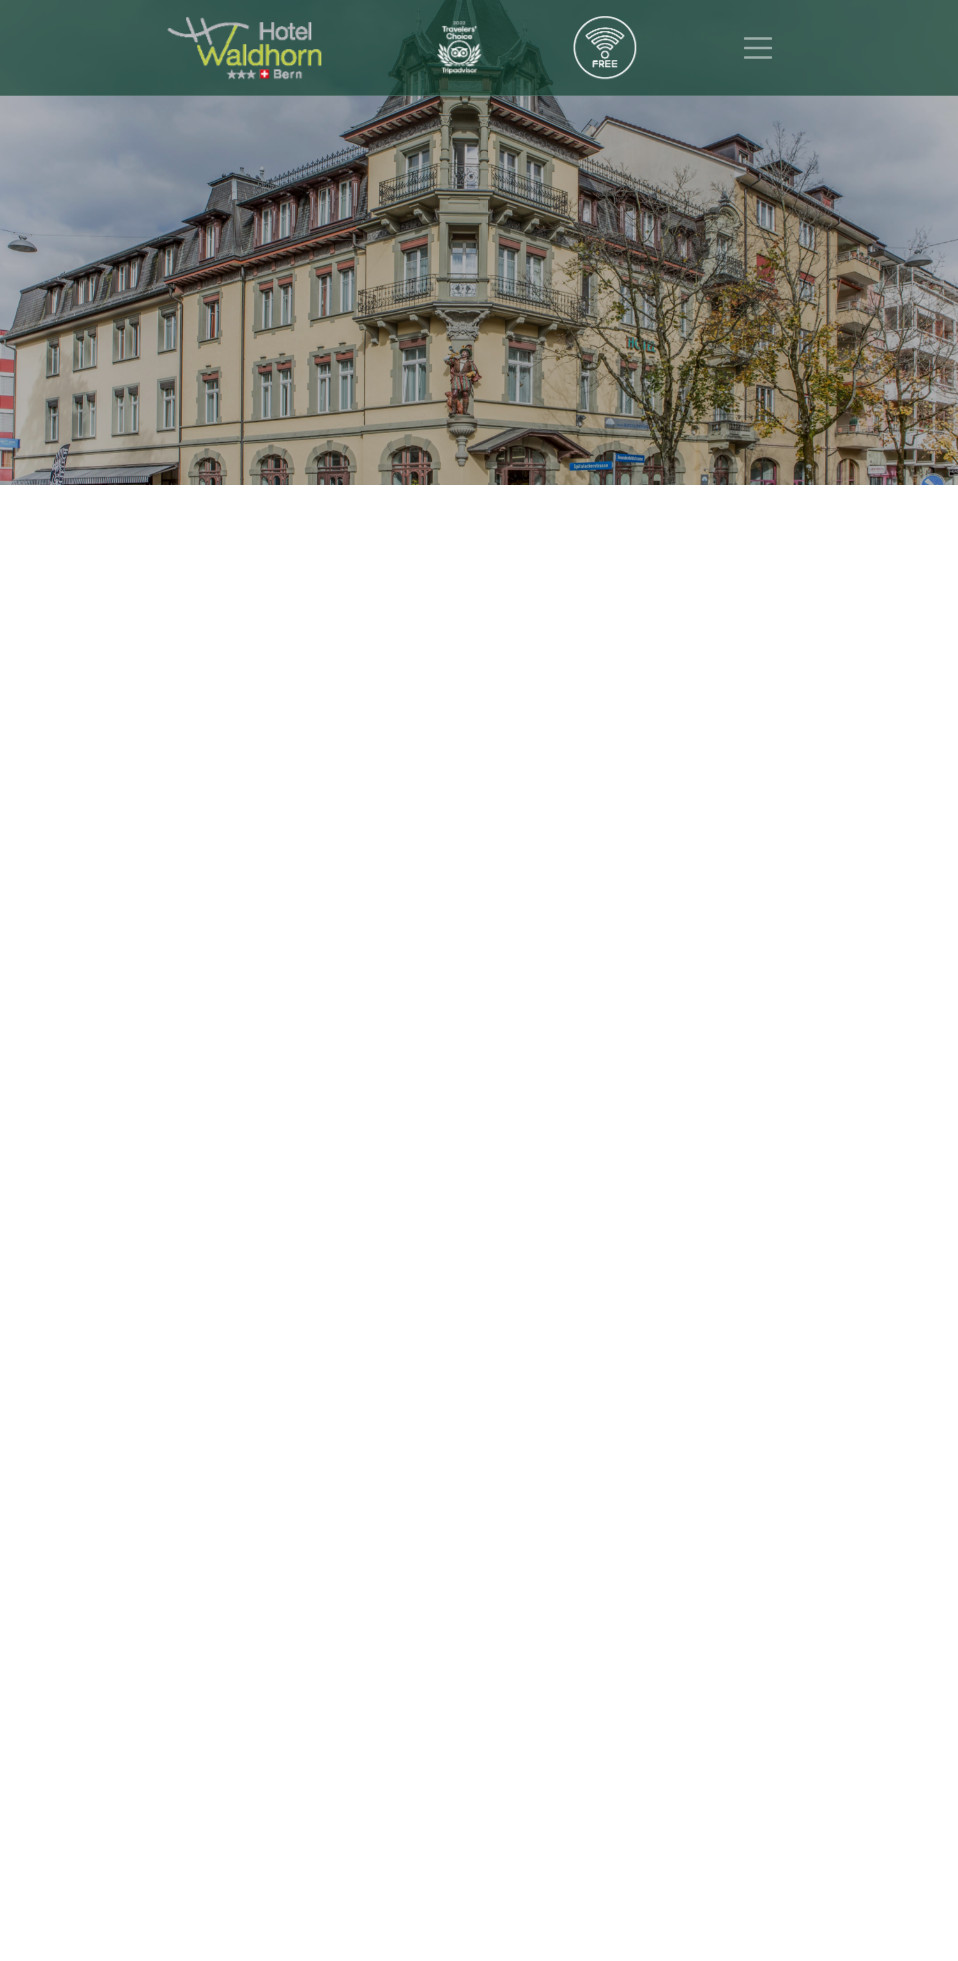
<svg xmlns="http://www.w3.org/2000/svg" width="958" height="1961">
<rect width="100%" height="100%" fill="#fff"/>
<image x="0" y="0" width="958" height="485" href="media/1.png"/>
<rect width="958" height="96" fill="#114232b5"/>
<rect y="95" width="958" height="1" fill="#ffffff26"/>
<image x="167" y="16" width="155" height="64" href="media/2.png"/>
<image x="437" y="21" width="45" height="54" href="media/3.png"/>
<image x="573" y="16" width="64" height="64" href="media/4.png"/>
<path d="M745 38.5h26m-26 9.5h26m-26 9.5h26" fill="none" stroke="#9caeaa" stroke-width="2.4" stroke-linecap="round"/>
</svg>
